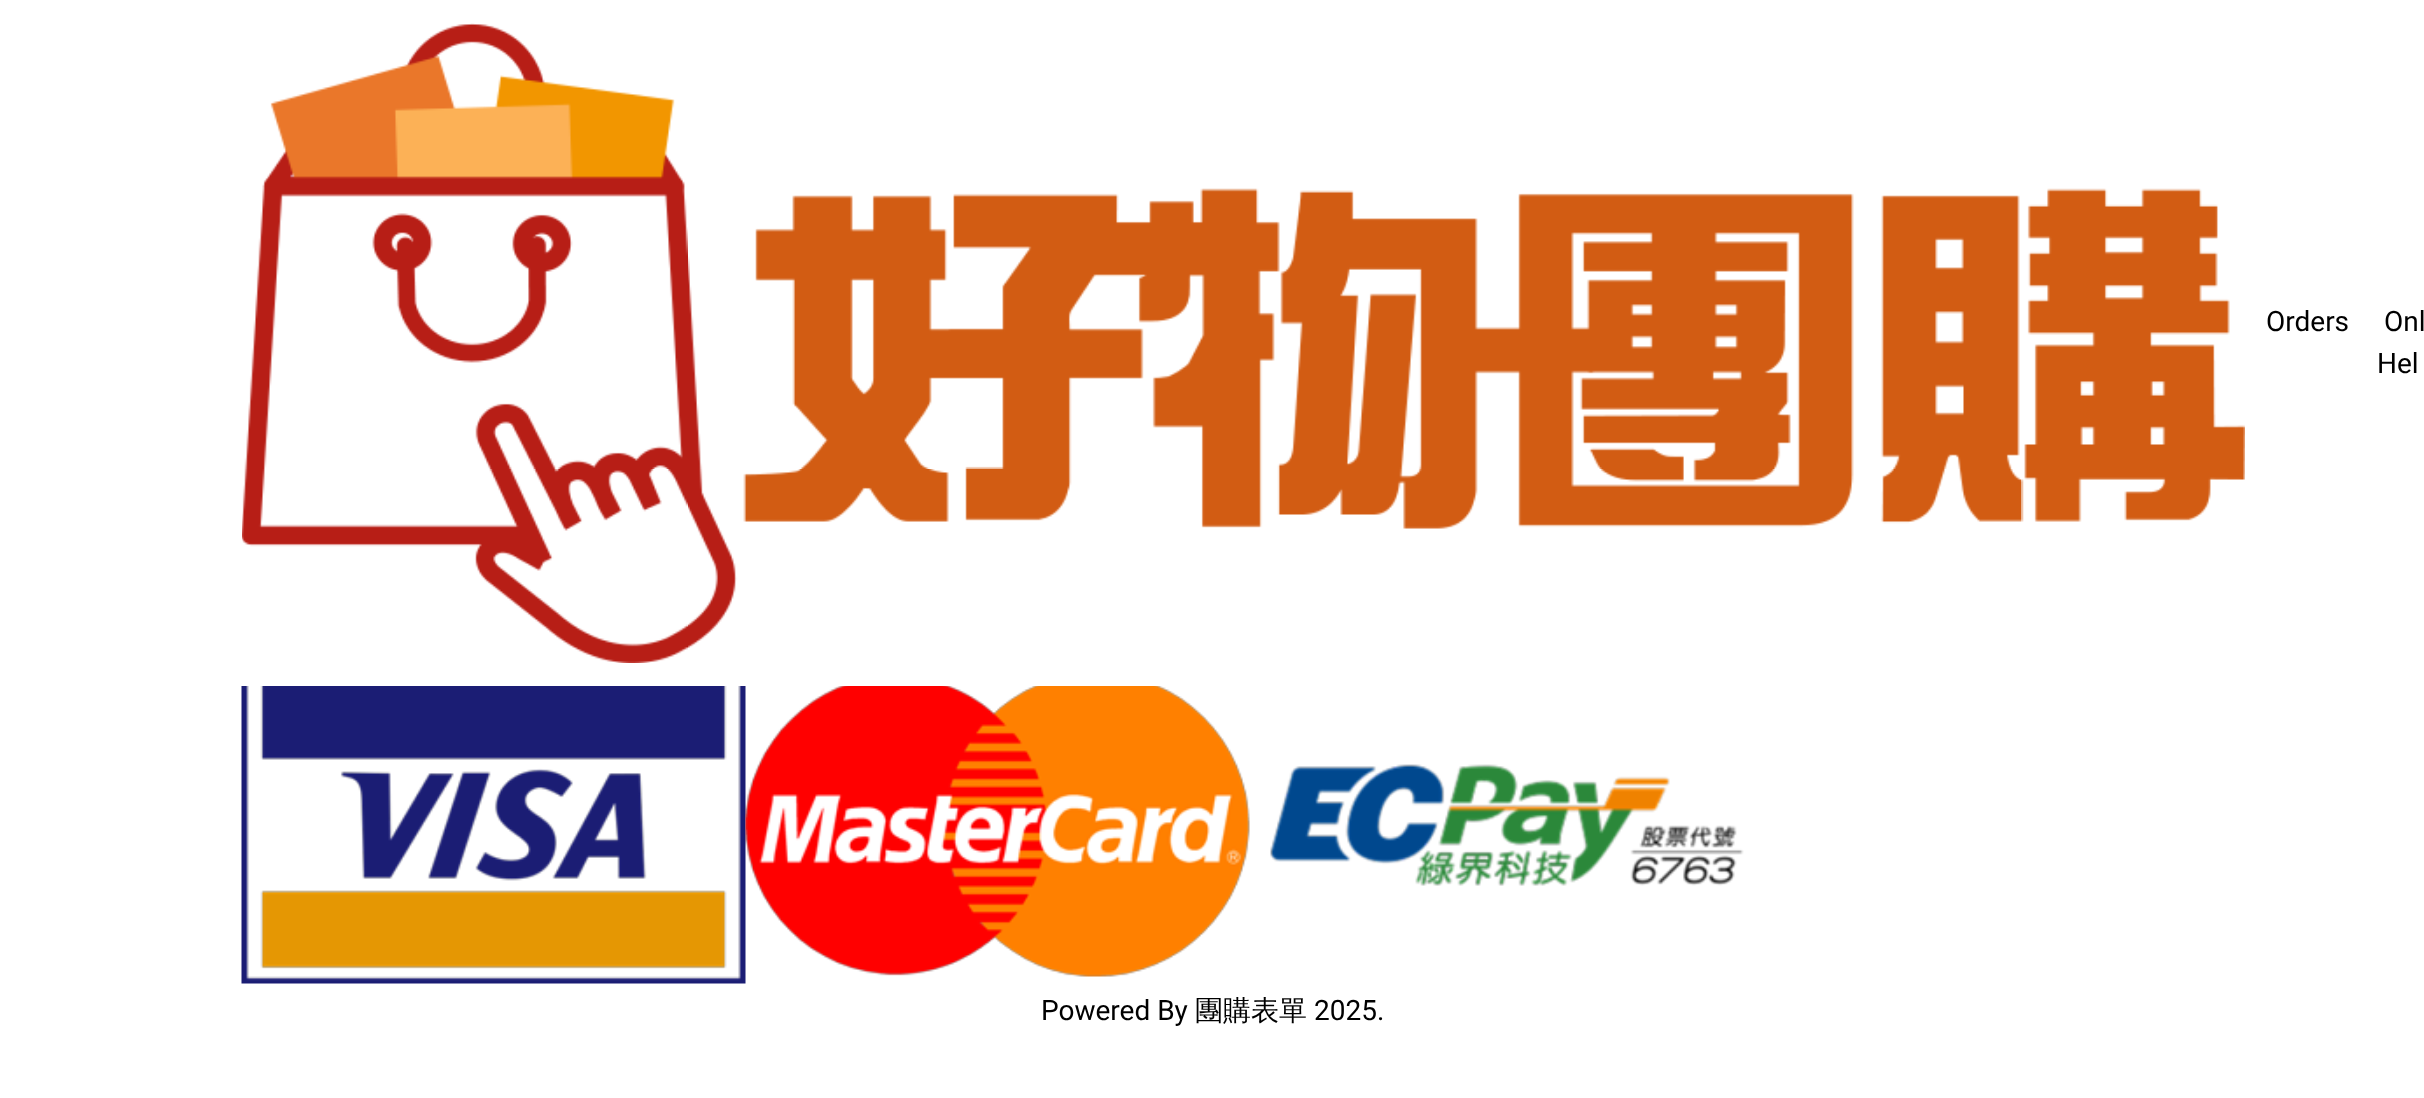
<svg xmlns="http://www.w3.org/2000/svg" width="2424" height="1098">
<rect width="100%" height="100%" fill="#fff"/>
<image x="242" y="23" width="2003" height="640" href="media/1.png"/>
<text x="2266" y="331" style="font-family:Roboto;font-size:28px;fill:#000">Orders</text>
<text x="2384" y="331" style="font-family:Roboto;font-size:28px;fill:#000">Onl</text>
<text x="2377" y="373" style="font-family:Roboto;font-size:28px;fill:#000">Hel</text>
<image x="241" y="686" width="505" height="298" href="media/2.png"/>
<image x="745" y="686" width="505" height="291" href="media/3.png"/>
<image x="1270" y="764" width="474" height="122" href="media/4.png"/>
<text x="1041" y="1020" style="font-family:Roboto;font-size:28px;fill:#000">Powered By</text>
<text x="1195" y="1020" style="font-family:WenQuanYi Zen Hei;font-size:28px;font-weight:500;fill:#000">團購表單</text>
<text x="1314" y="1020" style="font-family:Roboto;font-size:28px;fill:#000">2025.</text>
</svg>
